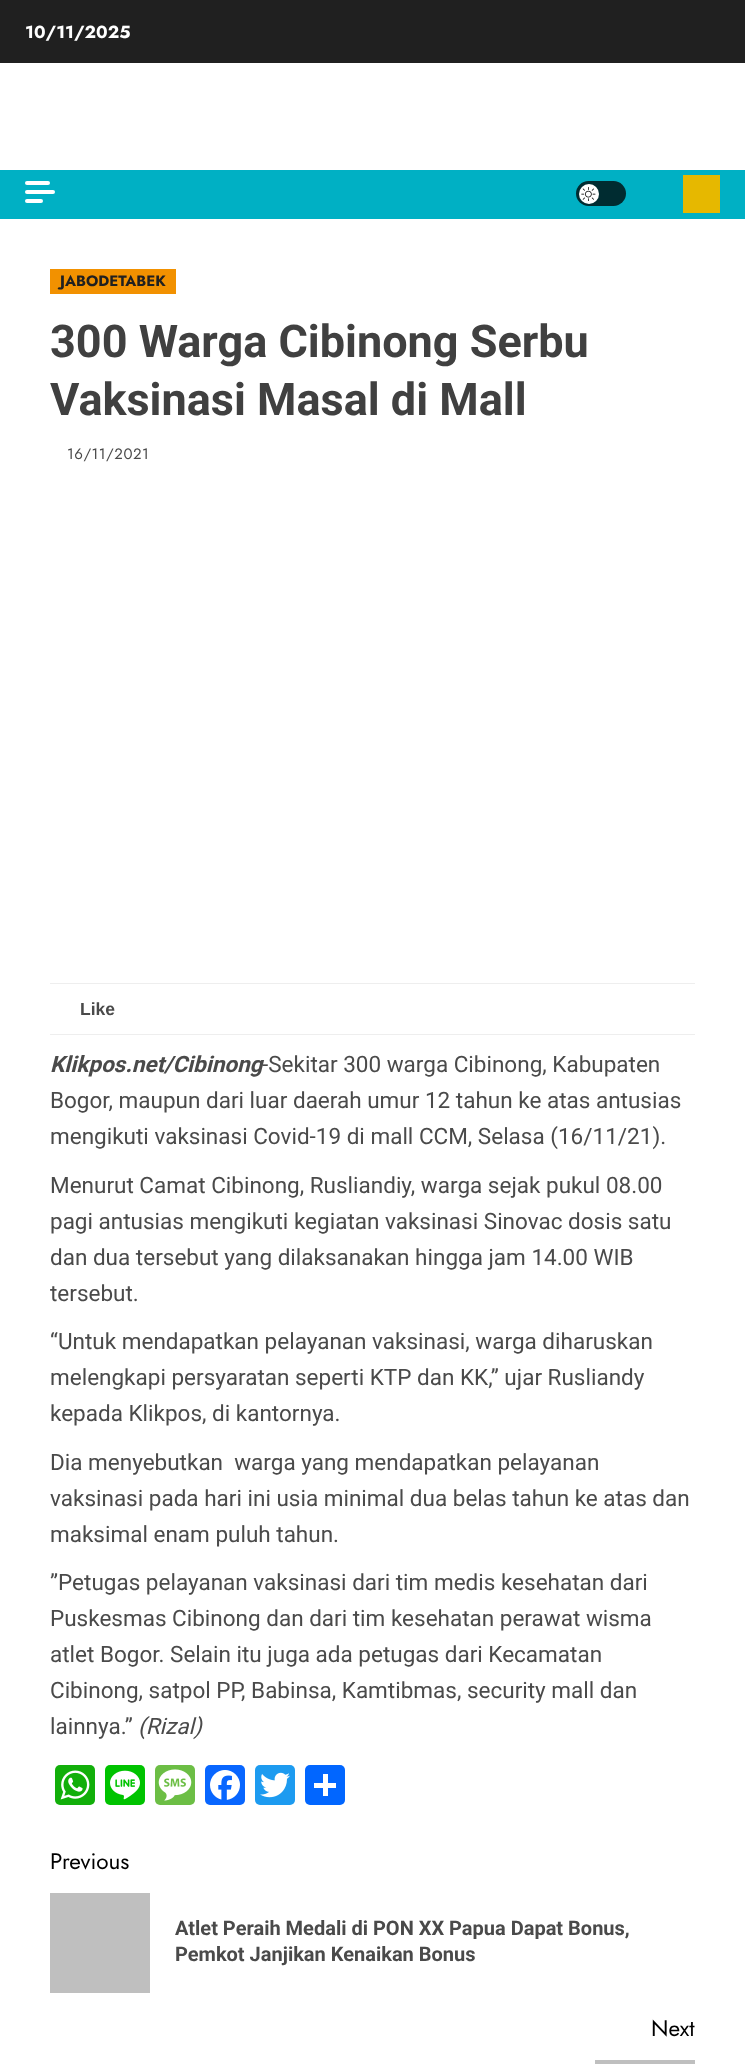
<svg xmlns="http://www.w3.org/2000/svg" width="745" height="2064">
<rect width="100%" height="100%" fill="#fff"/>
<rect width="745" height="63" fill="#202020"/>
<text x="25" y="38" style="font-family:Jost;font-size:17.5px;font-weight:bold;fill:#fff">10/11/2025</text>
<rect y="170" width="745" height="49" fill="#00b0c4"/>
<rect x="25" y="181" width="25" height="4" rx="2" fill="#fff"/>
<rect x="25" y="190" width="30" height="4" rx="2" fill="#fff"/>
<rect x="25" y="199" width="18" height="4" rx="2" fill="#fff"/>
<rect x="576" y="181" width="50" height="25" rx="12.5" fill="#002c31"/>
<circle cx="589" cy="194" r="10" fill="#fff"/>
<image x="581" y="187" width="15" height="14" href="media/1.png"/>
<rect x="683" y="175" width="37" height="38" fill="#e6b800"/>
<rect x="50" y="269" width="126" height="25" fill="#f29100"/>
<text x="60" y="286" style="font-family:Jost;font-size:15px;font-weight:bold;fill:#202020">JABODETABEK</text>
<text x="50" y="357" style="font-family:Roboto;font-size:45px;font-weight:bold;fill:#404040">300 Warga Cibinong Serbu</text>
<text x="50" y="415" style="font-family:Roboto;font-size:45px;font-weight:bold;fill:#404040">Vaksinasi Masal di Mall</text>
<text x="67" y="459" style="font-family:Jost;font-size:15px;letter-spacing:0.5px;fill:#4a4a4a">16/11/2021</text>
<rect x="50" y="983" width="645" height="1" fill="#eee"/>
<rect x="50" y="1034" width="645" height="1" fill="#eee"/>
<text x="80" y="1015" style="font-family:Liberation Sans;font-size:17.5px;font-weight:bold;fill:#4a4a4a">Like</text>
<text x="50" y="1072" style="font-family:Roboto;font-size:22.5px;font-weight:bold;font-style:italic;fill:#4a4a4a">Klikpos.net/Cibinong</text>
<text x="262" y="1072" style="font-family:Roboto;font-size:22.5px;fill:#4a4a4a">-Sekitar 300 warga Cibinong, Kabupaten</text>
<text x="50" y="1108" style="font-family:Roboto;font-size:22.5px;fill:#4a4a4a">Bogor, maupun dari luar daerah umur 12 tahun ke atas antusias</text>
<text x="50" y="1144" style="font-family:Roboto;font-size:22.5px;fill:#4a4a4a">mengikuti vaksinasi Covid-19 di mall CCM, Selasa (16/11/21).</text>
<text x="50" y="1193" style="font-family:Roboto;font-size:22.5px;fill:#4a4a4a">Menurut Camat Cibinong, Rusliandiy, warga sejak pukul 08.00</text>
<text x="50" y="1229" style="font-family:Roboto;font-size:22.5px;fill:#4a4a4a">pagi antusias mengikuti kegiatan vaksinasi Sinovac dosis satu</text>
<text x="50" y="1265" style="font-family:Roboto;font-size:22.5px;fill:#4a4a4a">dan dua tersebut yang dilaksanakan hingga jam 14.00 WIB</text>
<text x="50" y="1301" style="font-family:Roboto;font-size:22.5px;fill:#4a4a4a">tersebut.</text>
<text x="50" y="1349" style="font-family:Roboto;font-size:22.5px;fill:#4a4a4a">“Untuk mendapatkan pelayanan vaksinasi, warga diharuskan</text>
<text x="50" y="1385" style="font-family:Roboto;font-size:22.5px;fill:#4a4a4a">melengkapi persyaratan seperti KTP dan KK,” ujar Rusliandy</text>
<text x="50" y="1421" style="font-family:Roboto;font-size:22.5px;fill:#4a4a4a">kepada Klikpos, di kantornya.</text>
<text x="50" y="1470" style="font-family:Roboto;font-size:22.5px;fill:#4a4a4a" xml:space="preserve">Dia menyebutkan  warga yang mendapatkan pelayanan</text>
<text x="50" y="1506" style="font-family:Roboto;font-size:22.5px;fill:#4a4a4a">vaksinasi pada hari ini usia minimal dua belas tahun ke atas dan</text>
<text x="50" y="1542" style="font-family:Roboto;font-size:22.5px;fill:#4a4a4a">maksimal enam puluh tahun.</text>
<text x="50" y="1590" style="font-family:Roboto;font-size:22.5px;fill:#4a4a4a">”Petugas pelayanan vaksinasi dari tim medis kesehatan dari</text>
<text x="50" y="1626" style="font-family:Roboto;font-size:22.5px;fill:#4a4a4a">Puskesmas Cibinong dan dari tim kesehatan perawat wisma</text>
<text x="50" y="1662" style="font-family:Roboto;font-size:22.5px;fill:#4a4a4a">atlet Bogor. Selain itu juga ada petugas dari Kecamatan</text>
<text x="50" y="1698" style="font-family:Roboto;font-size:22.5px;fill:#4a4a4a">Cibinong, satpol PP, Babinsa, Kamtibmas, security mall dan</text>
<text x="50" y="1734" style="font-family:Roboto;font-size:22.5px;fill:#4a4a4a">lainnya.”</text>
<text x="138" y="1734" style="font-family:Roboto;font-size:22.5px;font-style:italic;fill:#4a4a4a">(Rizal)</text>
<rect x="55" y="1765" width="40" height="40" rx="5" fill="#12af0a"/>
<image x="60" y="1770" width="30" height="30" href="media/2.png"/>
<rect x="105" y="1765" width="40" height="40" rx="5" fill="#00c300"/>
<image x="110" y="1770" width="30" height="30" href="media/3.png"/>
<rect x="155" y="1765" width="40" height="40" rx="5" fill="#6cbe45"/>
<image x="158" y="1769" width="34" height="32" href="media/4.png"/>
<rect x="205" y="1765" width="40" height="40" rx="5" fill="#0866ff"/>
<image x="210" y="1770" width="30" height="30" href="media/5.png"/>
<rect x="255" y="1765" width="40" height="40" rx="5" fill="#1d9bf0"/>
<image x="260" y="1772" width="30" height="26" href="media/6.png"/>
<rect x="305" y="1765" width="40" height="40" rx="5" fill="#0166ff"/>
<rect x="323" y="1774" width="5" height="22" fill="#fff"/>
<rect x="314" y="1783" width="22" height="5" fill="#fff"/>
<text x="50" y="1869" style="font-family:Jost;font-size:22.5px;fill:#000">Previous</text>
<rect x="50" y="1893" width="100" height="100" fill="#bfbfbf"/>
<text x="175" y="1935" style="font-family:Roboto;font-size:20px;font-weight:bold;fill:#4a4a4a">Atlet Peraih Medali di PON XX Papua Dapat Bonus,</text>
<text x="175" y="1961" style="font-family:Roboto;font-size:20px;font-weight:bold;fill:#4a4a4a">Pemkot Janjikan Kenaikan Bonus</text>
<text x="651" y="2036" style="font-family:Jost;font-size:22.5px;fill:#000">Next</text>
<rect x="595" y="2060" width="100" height="4" fill="#bfbfbf"/>
</svg>
